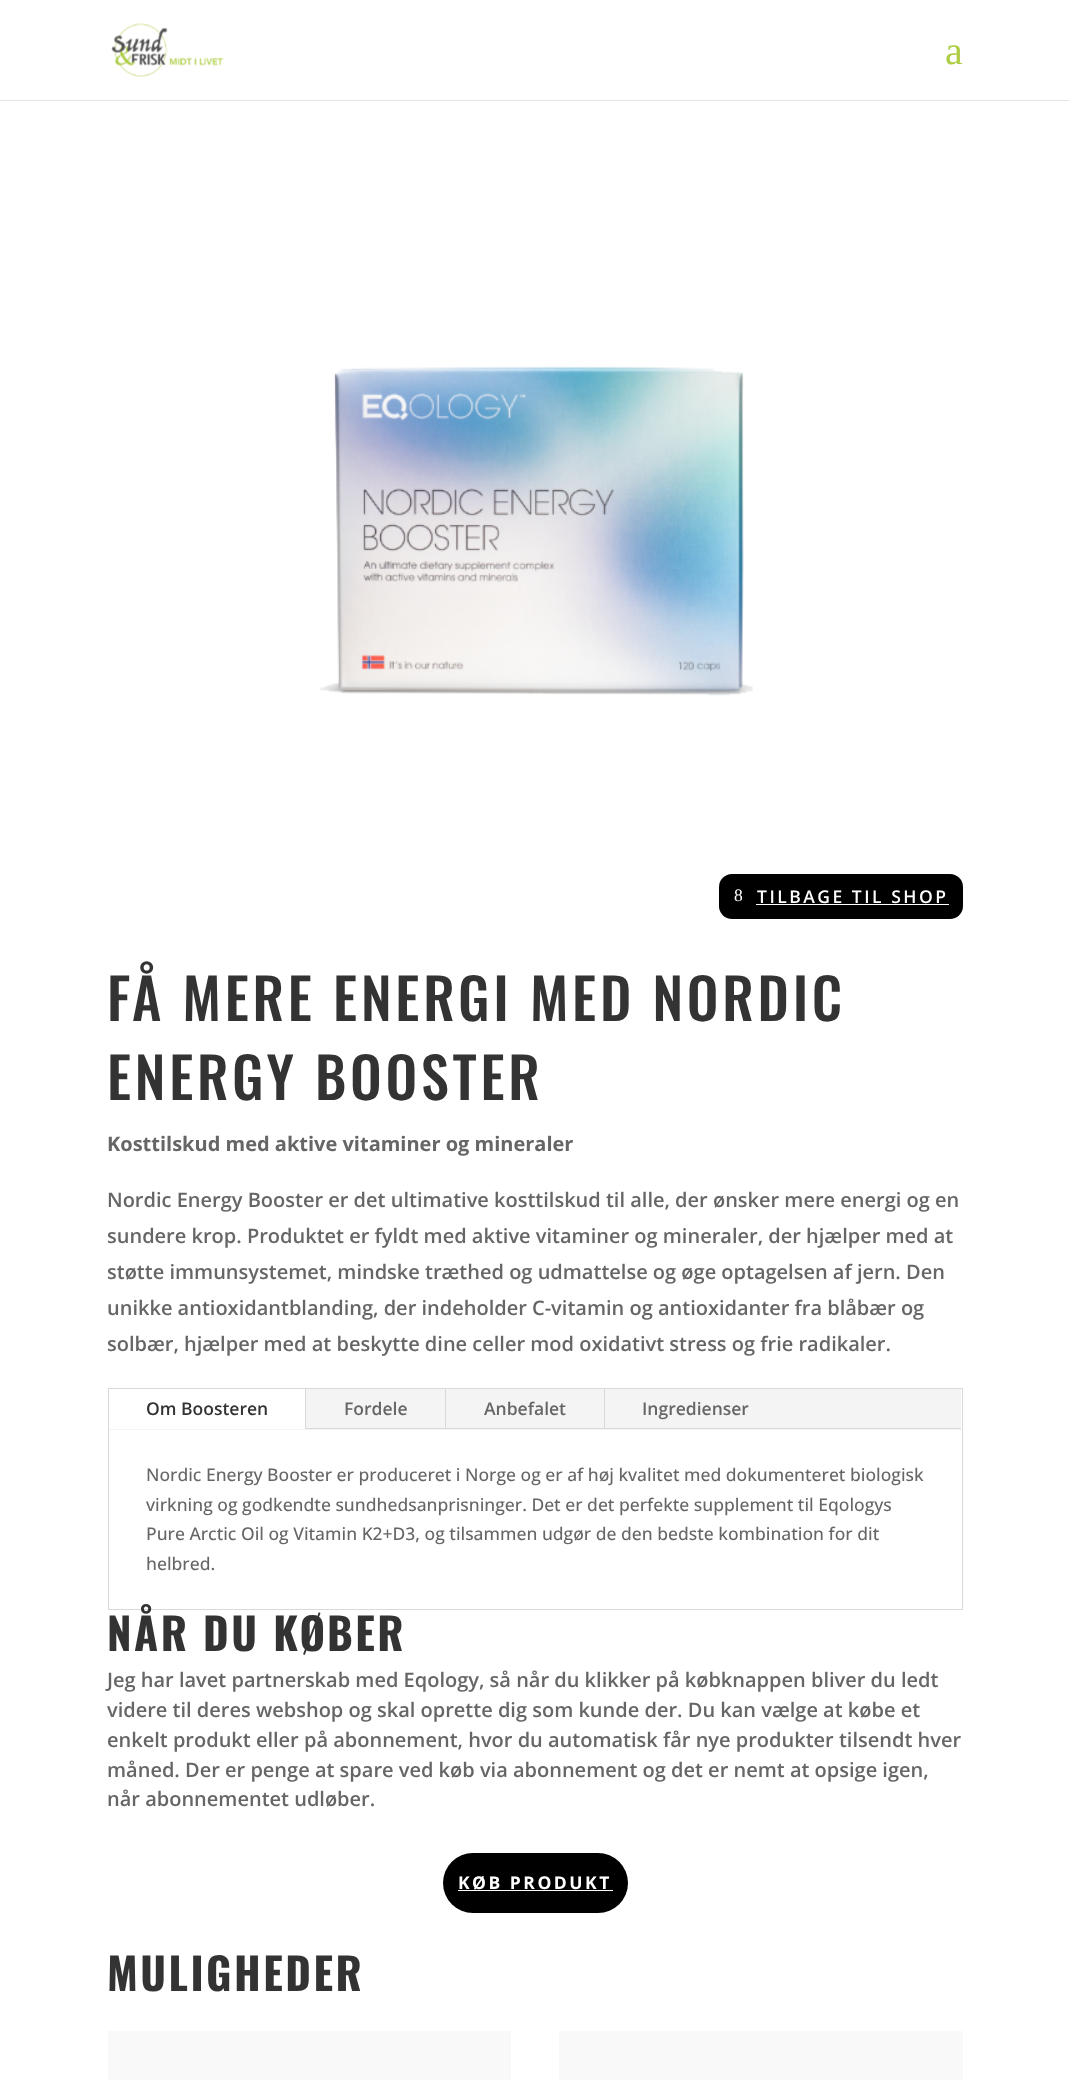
<svg xmlns="http://www.w3.org/2000/svg" width="1069" height="2080">
<rect width="100%" height="100%" fill="#fff"/>
<rect y="100" width="1069" height="1" fill="#e6e6e6"/>
<image x="111" y="23" width="113" height="54" href="media/1.png"/>
<text x="945" y="64" style="font-family:Liberation Serif;font-size:40px;fill:#adce44">a</text>
<image x="320" y="366" width="433" height="330" href="media/2.png"/>
<rect x="719" y="874" width="244" height="45" rx="13" fill="#000"/>
<text x="734" y="901" style="font-family:Liberation Serif;font-size:17.5px;letter-spacing:2.5px;fill:#fff">8</text>
<text x="757" y="903" style="font-family:Open Sans;font-size:17.5px;font-weight:600;letter-spacing:2.5px;fill:#fff">TILBAGE TIL SHOP</text>
<rect x="756" y="904" width="193" height="1" fill="#fff"/>
<text x="107" y="1021" style="font-family:Oswald;font-size:56.25px;font-weight:500;letter-spacing:3.75px;fill:#333">FÅ MERE ENERGI MED NORDIC</text>
<text x="107" y="1100" style="font-family:Oswald;font-size:56.25px;font-weight:500;letter-spacing:3.75px;fill:#333">ENERGY BOOSTER</text>
<text x="107" y="1151" style="font-family:Open Sans;font-size:20px;font-weight:bold;fill:#666">Kosttilskud med aktive vitaminer og mineraler</text>
<text x="107" y="1207" style="font-family:Open Sans;font-size:20px;font-weight:600;fill:#666">Nordic Energy Booster er det ultimative kosttilskud til alle, der ønsker mere energi og en</text>
<text x="107" y="1243" style="font-family:Open Sans;font-size:20px;font-weight:600;fill:#666">sundere krop. Produktet er fyldt med aktive vitaminer og mineraler, der hjælper med at</text>
<text x="107" y="1279" style="font-family:Open Sans;font-size:20px;font-weight:600;fill:#666">støtte immunsystemet, mindske træthed og udmattelse og øge optagelsen af jern. Den</text>
<text x="107" y="1315" style="font-family:Open Sans;font-size:20px;font-weight:600;fill:#666">unikke antioxidantblanding, der indeholder C-vitamin og antioxidanter fra blåbær og</text>
<text x="107" y="1351" style="font-family:Open Sans;font-size:20px;font-weight:600;fill:#666">solbær, hjælper med at beskytte dine celler mod oxidativt stress og frie radikaler.</text>
<rect x="108.5" y="1388.5" width="854" height="221" fill="none" stroke="#d9d9d9"/>
<rect x="109" y="1389" width="852" height="41" fill="#f4f4f4"/>
<rect x="109" y="1389" width="196" height="40" fill="#fff"/>
<rect x="305" y="1389" width="1" height="40" fill="#d9d9d9"/>
<text x="146" y="1415" style="font-family:Open Sans;font-size:17.5px;font-weight:600;fill:#333">Om Boosteren</text>
<rect x="306" y="1428" width="655" height="1" fill="#d9d9d9"/>
<rect x="445" y="1389" width="1" height="40" fill="#d9d9d9"/>
<text x="344" y="1415" style="font-family:Open Sans;font-size:17.5px;font-weight:600;fill:#666">Fordele</text>
<rect x="604" y="1389" width="1" height="40" fill="#d9d9d9"/>
<text x="484" y="1415" style="font-family:Open Sans;font-size:17.5px;font-weight:600;fill:#666">Anbefalet</text>
<text x="642" y="1415" style="font-family:Open Sans;font-size:17.5px;font-weight:600;fill:#666">Ingredienser</text>
<text x="146" y="1481" style="font-family:Open Sans;font-size:17.5px;font-weight:500;fill:#666">Nordic Energy Booster er produceret i Norge og er af høj kvalitet med dokumenteret biologisk</text>
<text x="146" y="1511" style="font-family:Open Sans;font-size:17.5px;font-weight:500;fill:#666">virkning og godkendte sundhedsanprisninger. Det er det perfekte supplement til Eqologys</text>
<text x="146" y="1540" style="font-family:Open Sans;font-size:17.5px;font-weight:500;fill:#666">Pure Arctic Oil og Vitamin K2+D3, og tilsammen udgør de den bedste kombination for dit</text>
<text x="146" y="1570" style="font-family:Open Sans;font-size:17.5px;font-weight:500;fill:#666">helbred.</text>
<text x="107" y="1651" style="font-family:Oswald;font-size:43.75px;font-weight:bold;letter-spacing:2.5px;fill:#333">NÅR DU KØBER</text>
<text x="107" y="1687" style="font-family:Open Sans;font-size:20px;font-weight:600;fill:#666">Jeg har lavet partnerskab med Eqology, så når du klikker på købknappen bliver du ledt</text>
<text x="107" y="1717" style="font-family:Open Sans;font-size:20px;font-weight:600;fill:#666">videre til deres webshop og skal oprette dig som kunde der. Du kan vælge at købe et</text>
<text x="107" y="1747" style="font-family:Open Sans;font-size:20px;font-weight:600;fill:#666">enkelt produkt eller på abonnement, hvor du automatisk får nye produkter tilsendt hver</text>
<text x="107" y="1777" style="font-family:Open Sans;font-size:20px;font-weight:600;fill:#666">måned. Der er penge at spare ved køb via abonnement og det er nemt at opsige igen,</text>
<text x="107" y="1806" style="font-family:Open Sans;font-size:20px;font-weight:600;fill:#666">når abonnementet udløber.</text>
<rect x="443" y="1853" width="185" height="60" rx="30" fill="#000"/>
<text x="458" y="1889" style="font-family:Open Sans;font-size:17.5px;font-weight:bold;letter-spacing:2.5px;fill:#fff">KØB PRODUKT</text>
<rect x="458" y="1890" width="155" height="1" fill="#fff"/>
<text x="107" y="1991" style="font-family:Oswald;font-size:43.75px;font-weight:bold;letter-spacing:2.5px;fill:#333">MULIGHEDER</text>
<rect x="108" y="2031" width="403" height="49" fill="#f9f9f9"/>
<rect x="559" y="2031" width="404" height="49" fill="#f9f9f9"/>
</svg>
